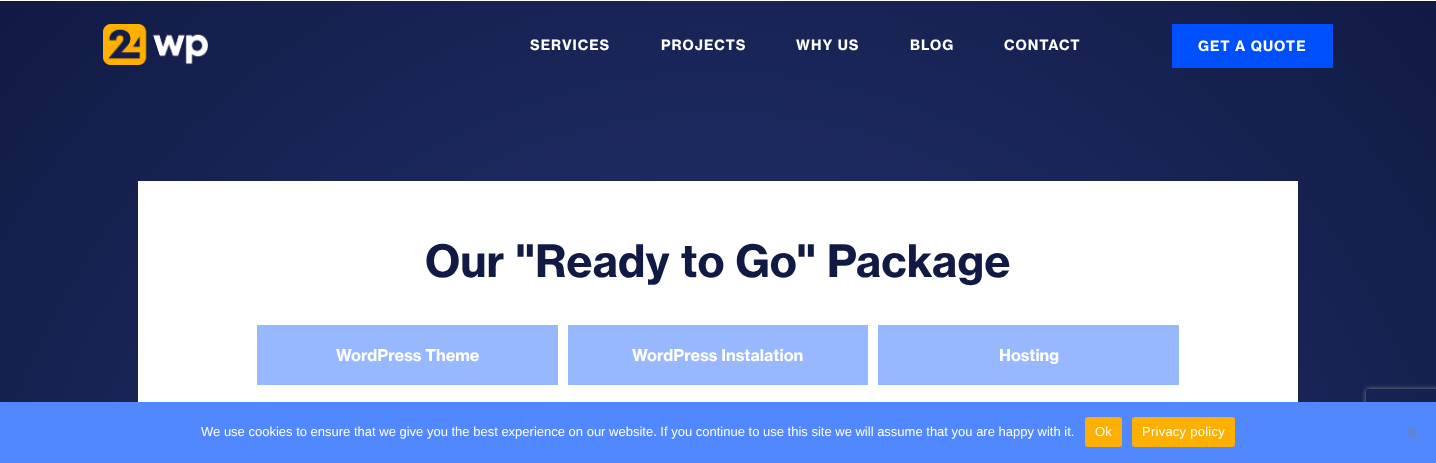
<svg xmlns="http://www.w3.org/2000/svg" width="1436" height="463">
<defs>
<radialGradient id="g1" gradientUnits="userSpaceOnUse" cx="718" cy="657" r="973"><stop offset="0" stop-color="#273879"/><stop offset="1" stop-color="#111a44"/></radialGradient>
<clipPath id="clip1"><path d="M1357 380h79v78h-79zm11 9h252c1 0 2 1 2 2v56c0 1-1 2-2 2h-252c-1 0-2-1-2-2v-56c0-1 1-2 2-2z" clip-rule="evenodd"/></clipPath>
</defs>
<rect width="100%" height="100%" fill="#fff"/>
<rect y="1" width="1436" height="401" fill="url(#g1)"/>
<image x="103" y="24" width="105" height="41" href="media/1.png"/>
<text x="530" y="50" style="font-family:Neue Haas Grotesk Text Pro;font-size:14px;font-weight:bold;letter-spacing:1px;fill:#fff">SERVICES</text>
<text x="661" y="50" style="font-family:Neue Haas Grotesk Text Pro;font-size:14px;font-weight:bold;letter-spacing:1px;fill:#fff">PROJECTS</text>
<text x="796" y="50" style="font-family:Neue Haas Grotesk Text Pro;font-size:14px;font-weight:bold;letter-spacing:1px;fill:#fff">WHY US</text>
<text x="910" y="50" style="font-family:Neue Haas Grotesk Text Pro;font-size:14px;font-weight:bold;letter-spacing:1px;fill:#fff">BLOG</text>
<text x="1004" y="50" style="font-family:Neue Haas Grotesk Text Pro;font-size:14px;font-weight:bold;letter-spacing:1px;fill:#fff">CONTACT</text>
<rect x="1172" y="24" width="161" height="44" fill="#004fff"/>
<text x="1198" y="51" style="font-family:Neue Haas Grotesk Text Pro;font-size:14px;font-weight:bold;letter-spacing:1px;fill:#fff">GET A QUOTE</text>
<rect x="138" y="181" width="1160" height="221" fill="#fff"/>
<text x="425" y="277" style="font-family:Neue Haas Grotesk Text Pro;font-size:44px;font-weight:bold;fill:#111a44">Our "Ready to Go" Package</text>
<rect x="257" y="325" width="301" height="60" fill="#97b8ff"/>
<text x="336" y="361" style="font-family:Neue Haas Grotesk Text Pro;font-size:16px;font-weight:bold;fill:#fff">WordPress Theme</text>
<rect x="568" y="325" width="300" height="60" fill="#97b8ff"/>
<text x="632" y="361" style="font-family:Neue Haas Grotesk Text Pro;font-size:16px;font-weight:bold;fill:#fff">WordPress Instalation</text>
<rect x="878" y="325" width="301" height="60" fill="#97b8ff"/>
<text x="999" y="361" style="font-family:Neue Haas Grotesk Text Pro;font-size:16px;font-weight:bold;fill:#fff">Hosting</text>
<g clip-path="url(#clip1)">
<rect x="1366" y="389" width="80" height="60" rx="2" fill="#808080" filter="blur(2.5px)"/>
</g>
<rect y="402" width="1436" height="61" fill="#5288ff"/>
<text x="201" y="436" style="font-family:Liberation Sans;font-size:13px;fill:#fff">We use cookies to ensure that we give you the best experience on our website. If you continue to use this site we will assume that you are happy with it.</text>
<rect x="1085" y="417" width="37" height="30" rx="3" fill="#feb002"/>
<text x="1095" y="436" style="font-family:Liberation Sans;font-size:13px;letter-spacing:0.25px;fill:#fff">Ok</text>
<rect x="1132" y="417" width="103" height="30" rx="3" fill="#feb002"/>
<text x="1142" y="436" style="font-family:Liberation Sans;font-size:13px;letter-spacing:0.25px;fill:#fff">Privacy policy</text>
<path d="M1416.5 426.5l1.5 1.5l-10.5 11l-1.5-1.5z" fill="#6984c0"/>
<path d="M1406 428l1.5-1.5l10.5 11l-1.5 1.5z" fill="#6984c0"/>
</svg>
